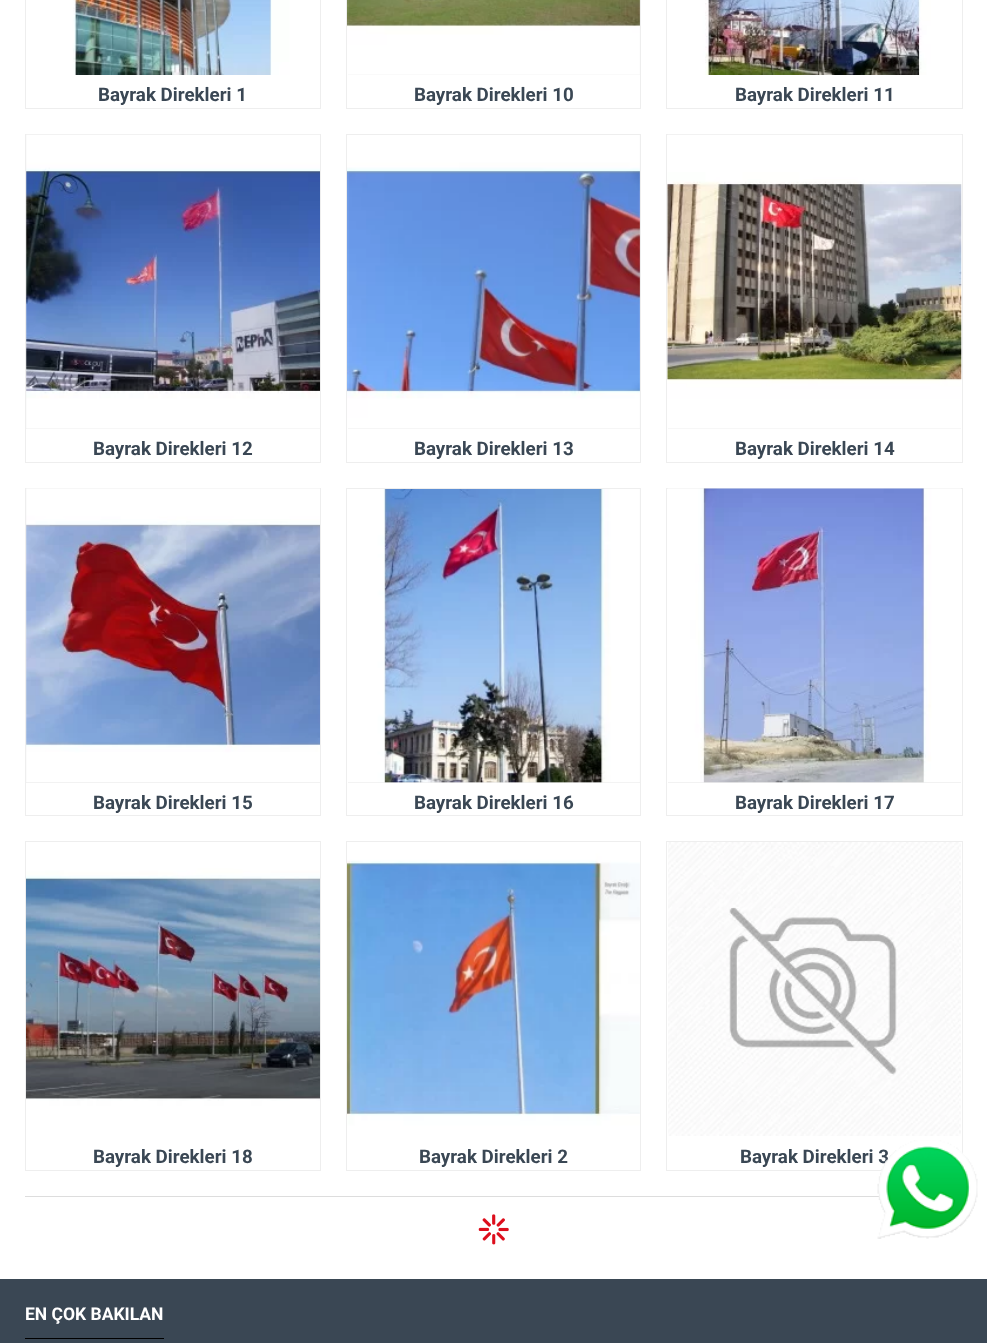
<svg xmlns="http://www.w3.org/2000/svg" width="987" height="1343">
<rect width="100%" height="100%" fill="#fff"/>
<rect x="25.5" y="-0.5" width="295" height="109" fill="none" stroke="#eee"/>
<image x="26" y="0" width="294" height="75" href="media/1.png"/>
<text x="98" y="101" style="font-family:Roboto;font-size:18.75px;font-weight:bold;fill:#3a4754">Bayrak Direkleri 1</text>
<rect x="346.5" y="-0.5" width="294" height="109" fill="none" stroke="#eee"/>
<rect x="348" width="292" height="75" fill="#eee"/>
<image x="347" y="0" width="293" height="75" href="media/2.png"/>
<text x="414" y="101" style="font-family:Roboto;font-size:18.75px;font-weight:bold;fill:#3a4754">Bayrak Direkleri 10</text>
<rect x="666.5" y="-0.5" width="296" height="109" fill="none" stroke="#eee"/>
<image x="668" y="0" width="293" height="75" href="media/3.png"/>
<text x="735" y="101" style="font-family:Roboto;font-size:18.75px;font-weight:bold;fill:#3a4754">Bayrak Direkleri 11</text>
<rect x="25.5" y="134.5" width="295" height="328" fill="none" stroke="#eee"/>
<rect x="26" y="135" width="294" height="294" fill="#eee"/>
<image x="26" y="134" width="294" height="295" href="media/4.png"/>
<text x="93" y="455" style="font-family:Roboto;font-size:18.75px;font-weight:bold;fill:#3a4754">Bayrak Direkleri 12</text>
<rect x="346.5" y="134.5" width="294" height="328" fill="none" stroke="#eee"/>
<rect x="348" y="135" width="292" height="294" fill="#eee"/>
<image x="347" y="135" width="293" height="294" href="media/5.png"/>
<text x="414" y="455" style="font-family:Roboto;font-size:18.75px;font-weight:bold;fill:#3a4754">Bayrak Direkleri 13</text>
<rect x="666.5" y="134.5" width="296" height="328" fill="none" stroke="#eee"/>
<rect x="668" y="428" width="293" height="1" fill="#eee"/>
<image x="667" y="134" width="295" height="295" href="media/6.png"/>
<text x="735" y="455" style="font-family:Roboto;font-size:18.75px;font-weight:bold;fill:#3a4754">Bayrak Direkleri 14</text>
<rect x="25.5" y="488.5" width="295" height="327" fill="none" stroke="#eee"/>
<rect x="26" y="489" width="294" height="294" fill="#eee"/>
<image x="26" y="488" width="294" height="295" href="media/7.png"/>
<text x="93" y="809" style="font-family:Roboto;font-size:18.75px;font-weight:bold;fill:#3a4754">Bayrak Direkleri 15</text>
<rect x="346.5" y="488.5" width="294" height="327" fill="none" stroke="#eee"/>
<rect x="348" y="489" width="292" height="294" fill="#eee"/>
<image x="348" y="489" width="292" height="294" href="media/8.png"/>
<text x="414" y="809" style="font-family:Roboto;font-size:18.75px;font-weight:bold;fill:#3a4754">Bayrak Direkleri 16</text>
<rect x="666.5" y="488.5" width="296" height="327" fill="none" stroke="#eee"/>
<rect x="668" y="782" width="293" height="1" fill="#eee"/>
<image x="667" y="488" width="294" height="295" href="media/9.png"/>
<text x="735" y="809" style="font-family:Roboto;font-size:18.75px;font-weight:bold;fill:#3a4754">Bayrak Direkleri 17</text>
<rect x="25.5" y="841.5" width="295" height="329" fill="none" stroke="#eee"/>
<image x="26" y="843" width="294" height="293" href="media/10.png"/>
<text x="93" y="1163" style="font-family:Roboto;font-size:18.75px;font-weight:bold;fill:#3a4754">Bayrak Direkleri 18</text>
<rect x="346.5" y="841.5" width="294" height="329" fill="none" stroke="#eee"/>
<image x="347" y="843" width="293" height="293" href="media/11.png"/>
<text x="419" y="1163" style="font-family:Roboto;font-size:18.75px;font-weight:bold;fill:#3a4754">Bayrak Direkleri 2</text>
<rect x="666.5" y="841.5" width="296" height="329" fill="none" stroke="#eee"/>
<image x="668" y="842" width="293" height="294" href="media/12.png"/>
<text x="740" y="1163" style="font-family:Roboto;font-size:18.75px;font-weight:bold;fill:#3a4754">Bayrak Direkleri 3</text>
<rect x="25" y="1196" width="854" height="1" fill="#ddd"/>
<image x="478" y="1214" width="31" height="31" href="media/13.png"/>
<rect y="1279" width="987" height="64" fill="#3a4754"/>
<rect x="25" y="1338" width="139" height="1" fill="#000"/>
<text x="25" y="1320" style="font-family:Roboto;font-size:17.5px;font-weight:bold;fill:#fff">EN ÇOK BAKILAN</text>
<image x="877" y="1140" width="101" height="99" href="media/14.png"/>
</svg>
